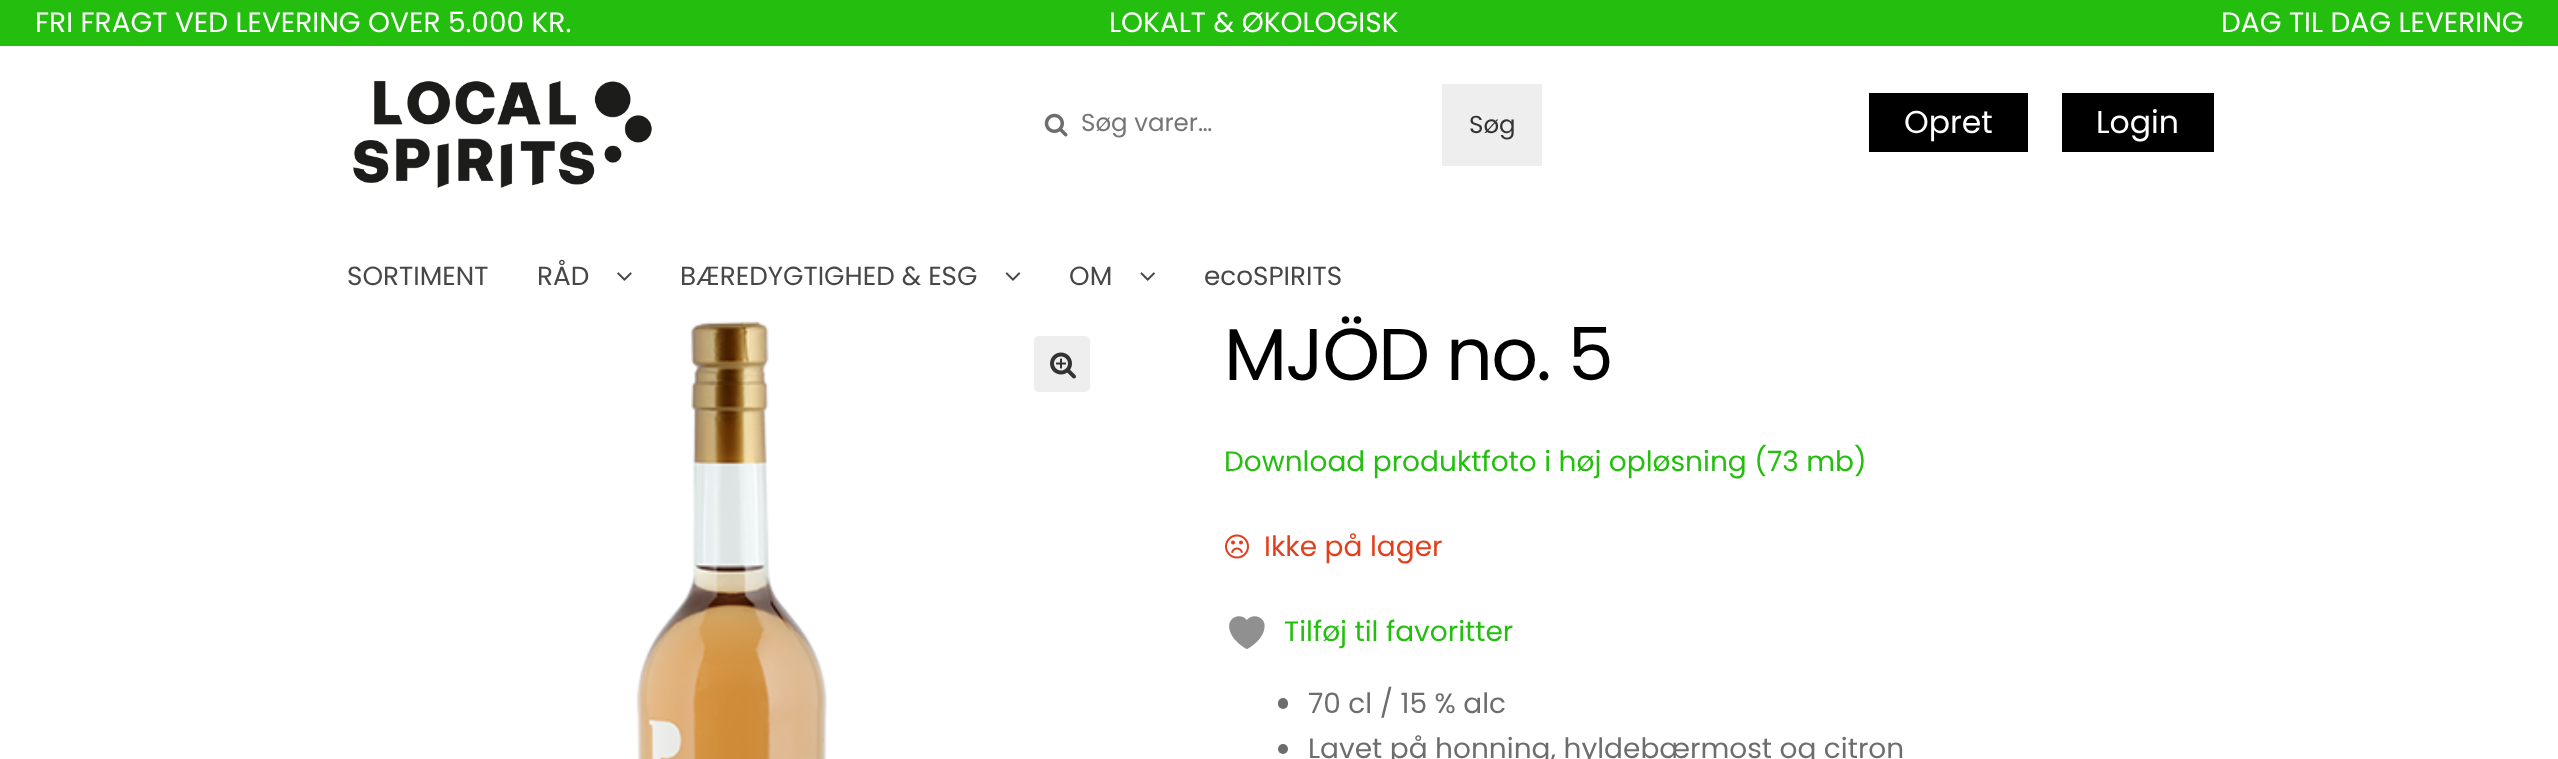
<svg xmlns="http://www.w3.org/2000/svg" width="2558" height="759">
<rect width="100%" height="100%" fill="#fff"/>
<rect width="2558" height="46" fill="#23be0e"/>
<text x="35" y="32" style="font-family:Poppins;font-size:28px;fill:#fff">FRI FRAGT VED LEVERING OVER 5.000 KR.</text>
<text x="1109" y="32" style="font-family:Poppins;font-size:28px;fill:#fff">LOKALT &amp; ØKOLOGISK</text>
<text x="2221" y="32" style="font-family:Poppins;font-size:28px;fill:#fff">DAG TIL DAG LEVERING</text>
<image x="1044" y="113" width="24" height="24" href="media/1.png"/>
<text x="1081" y="131" style="font-family:Poppins;font-size:24.5px;fill:#757575">Søg varer…</text>
<rect x="1442" y="84" width="100" height="82" fill="#eee"/>
<text x="1469" y="133" style="font-family:Poppins;font-size:24.5px;fill:#333">Søg</text>
<image x="353" y="80" width="299" height="108" href="media/2.png"/>
<rect x="1869" y="93" width="159" height="59" fill="#000"/>
<text x="1904" y="133" style="font-family:Poppins;font-size:31.5px;fill:#fff">Opret</text>
<rect x="2062" y="93" width="152" height="59" fill="#000"/>
<text x="2096" y="133" style="font-family:Poppins;font-size:31.5px;fill:#fff">Login</text>
<text x="347" y="285" style="font-family:Poppins;font-size:26.25px;fill:#474747">SORTIMENT</text>
<text x="537" y="285" style="font-family:Poppins;font-size:26.25px;fill:#474747">RÅD</text>
<image x="617" y="272" width="15" height="9" href="media/3.png"/>
<text x="680" y="285" style="font-family:Poppins;font-size:26.25px;fill:#474747">BÆREDYGTIGHED &amp; ESG</text>
<image x="1005" y="272" width="16" height="9" href="media/4.png"/>
<text x="1069" y="285" style="font-family:Poppins;font-size:26.25px;fill:#474747">OM</text>
<image x="1140" y="272" width="15" height="9" href="media/5.png"/>
<text x="1204" y="285" style="font-family:Poppins;font-size:26.25px;fill:#474747">ecoSPIRITS</text>
<image x="636" y="321" width="192" height="438" href="media/6.png"/>
<rect x="1034" y="336" width="56" height="56" rx="5" fill="#eee"/>
<image x="1050" y="352" width="26" height="27" href="media/7.png"/>
<text x="1224" y="380" style="font-family:Poppins;font-size:73.25px;letter-spacing:-1.75px;fill:#000">MJÖD no. 5</text>
<text x="1224" y="471" style="font-family:Poppins;font-size:28px;fill:#23be0e">Download produktfoto i høj opløsning (73 mb)</text>
<image x="1225" y="534" width="24" height="25" href="media/8.png"/>
<text x="1264" y="556" style="font-family:Poppins;font-size:28px;fill:#e2401c">Ikke på lager</text>
<image x="1229" y="616" width="36" height="33" href="media/9.png"/>
<text x="1284" y="641" style="font-family:Poppins;font-size:28px;fill:#23be0e">Tilføj til favoritter</text>
<rect x="1278" y="698" width="10" height="11" rx="5" fill="#6d6d6d"/>
<text x="1308" y="713" style="font-family:Poppins;font-size:28px;fill:#6d6d6d">70 cl / 15 % alc</text>
<circle cx="1283" cy="749" r="5" fill="#6d6d6d"/>
<text x="1308" y="758" style="font-family:Poppins;font-size:28px;fill:#6d6d6d">Lavet på honning, hyldebærmost og citron</text>
</svg>
